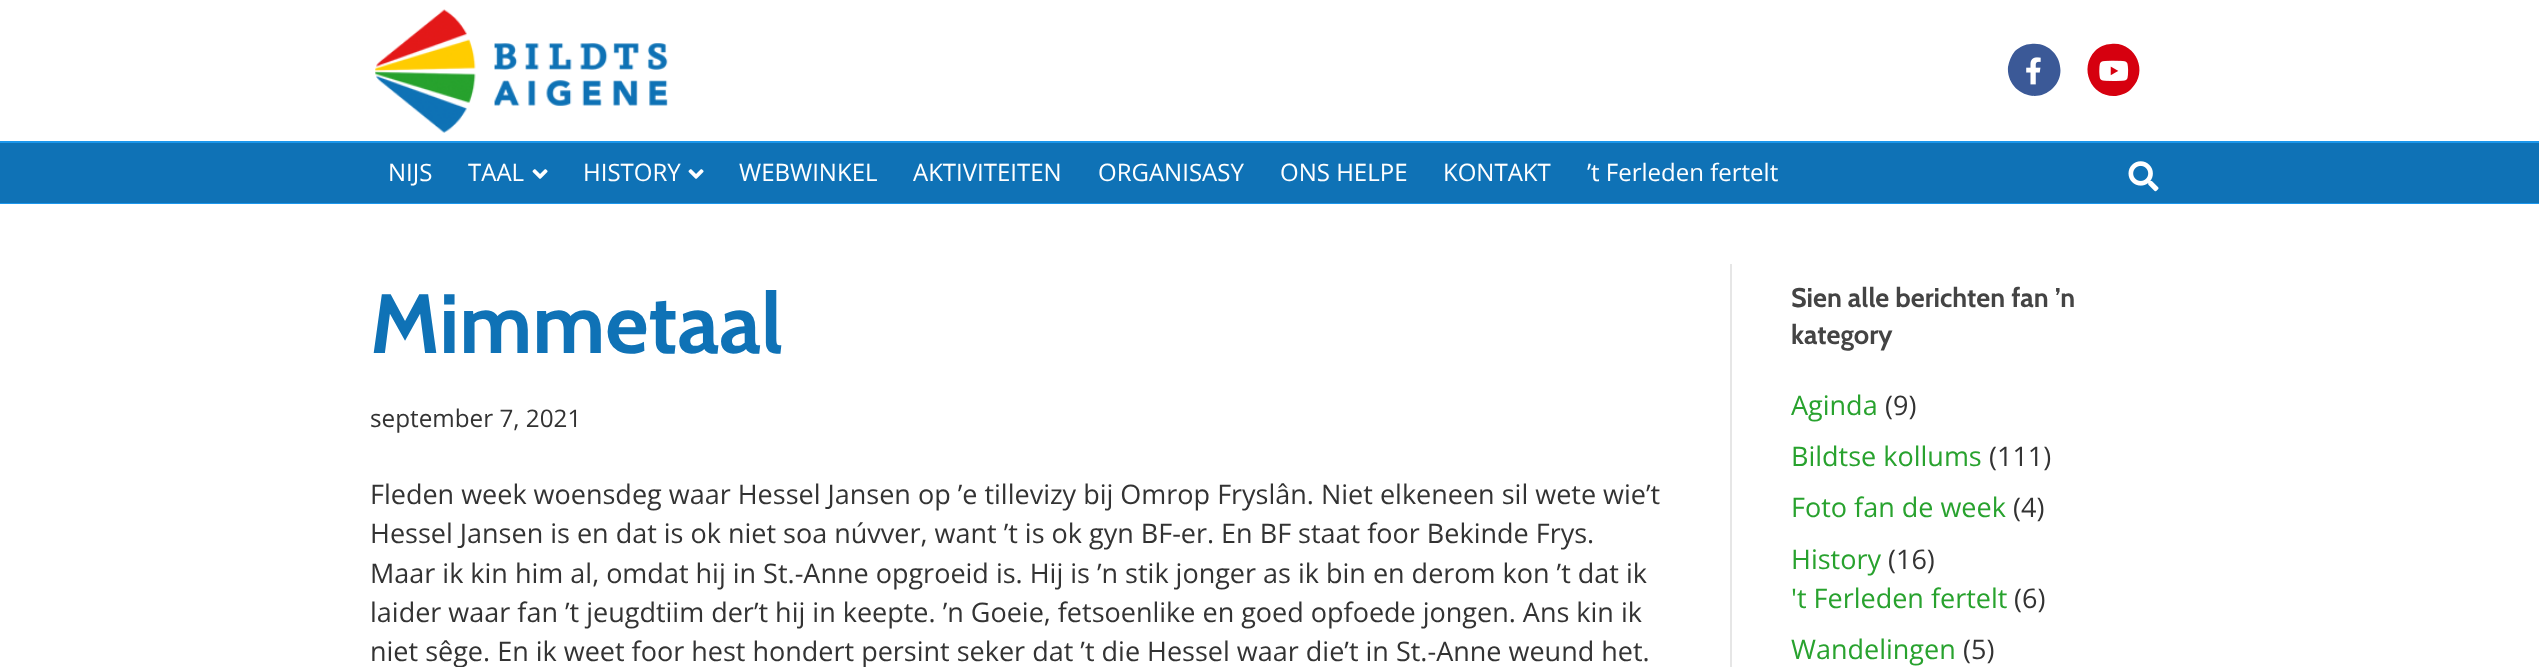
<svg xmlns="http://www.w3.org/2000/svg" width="2539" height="667">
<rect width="100%" height="100%" fill="#fff"/>
<image x="375" y="9" width="293" height="124" href="media/1.png"/>
<path d="M2015 51c5-4 10-7 16-7c25-3 39 27 22 44c-18 18-47 3-45-21c1-6 3-11 7-16z" fill="#3b5997"/>
<image x="2026" y="57" width="15" height="28" href="media/2.png"/>
<path d="M2095 51c4-4 10-7 16-7c24-3 38 27 21 44c-4 5-10 7-16 8c-24 2-38-27-21-45z" fill="#d6000f"/>
<image x="2099" y="60" width="30" height="21" href="media/3.png"/>
<rect y="143" width="2539" height="60" fill="#0f72b6"/>
<rect y="141" width="2539" height="2" fill="#1b97ec"/>
<rect y="203" width="2539" height="1" fill="#1b97ec"/>
<text x="388" y="181" style="font-family:Open Sans;font-size:24px;fill:#fff">NIJS</text>
<text x="468" y="181" style="font-family:Open Sans;font-size:24px;fill:#fff">TAAL</text>
<image x="532" y="169" width="16" height="10" href="media/4.png"/>
<text x="583" y="181" style="font-family:Open Sans;font-size:24px;fill:#fff">HISTORY</text>
<image x="688" y="169" width="16" height="10" href="media/4.png"/>
<text x="739" y="181" style="font-family:Open Sans;font-size:24px;fill:#fff">WEBWINKEL</text>
<text x="913" y="181" style="font-family:Open Sans;font-size:24px;fill:#fff">AKTIVITEITEN</text>
<text x="1098" y="181" style="font-family:Open Sans;font-size:24px;fill:#fff">ORGANISASY</text>
<text x="1280" y="181" style="font-family:Open Sans;font-size:24px;fill:#fff">ONS HELPE</text>
<text x="1443" y="181" style="font-family:Open Sans;font-size:24px;fill:#fff">KONTAKT</text>
<text x="1587" y="181" style="font-family:Open Sans;font-size:24px;fill:#fff">’t Ferleden fertelt</text>
<image x="2128" y="161" width="31" height="31" href="media/5.png"/>
<rect x="1730" y="264" width="2" height="403" fill="#e6e6e6"/>
<text x="370" y="353" style="font-family:Cabin;font-size:84px;font-weight:bold;fill:#0f72b6">Mimmetaal</text>
<text x="370" y="427" style="font-family:Open Sans;font-size:24.25px;fill:#333">september 7, 2021</text>
<text x="370" y="504" style="font-family:Open Sans;font-size:27px;fill:#333">Fleden week woensdeg waar Hessel Jansen op ’e tillevizy bij Omrop Fryslân. Niet elkeneen sil wete wie’t</text>
<text x="370" y="543" style="font-family:Open Sans;font-size:27px;fill:#333">Hessel Jansen is en dat is ok niet soa núvver, want ’t is ok gyn BF-er. En BF staat foor Bekinde Frys.</text>
<text x="370" y="583" style="font-family:Open Sans;font-size:27px;fill:#333">Maar ik kin him al, omdat hij in St.-Anne opgroeid is. Hij is ’n stik jonger as ik bin en derom kon ’t dat ik</text>
<text x="370" y="622" style="font-family:Open Sans;font-size:27px;fill:#333">laider waar fan ’t jeugdtiim der’t hij in keepte. ’n Goeie, fetsoenlike en goed opfoede jongen. Ans kin ik</text>
<text x="370" y="661" style="font-family:Open Sans;font-size:27px;fill:#333">niet sêge. En ik weet foor hest hondert persint seker dat ’t die Hessel waar die’t in St.-Anne weund het.</text>
<text x="1791" y="307" style="font-family:Cabin;font-size:27px;font-weight:bold;fill:#444">Sien alle berichten fan ’n</text>
<text x="1791" y="344" style="font-family:Cabin;font-size:27px;font-weight:bold;fill:#444">kategory</text>
<text x="1791" y="415" style="font-family:Open Sans;font-size:27px;fill:#28a22e">Aginda</text>
<text x="1885" y="415" style="font-family:Open Sans;font-size:27px;fill:#333">(9)</text>
<text x="1791" y="466" style="font-family:Open Sans;font-size:27px;fill:#28a22e">Bildtse kollums</text>
<text x="1989" y="466" style="font-family:Open Sans;font-size:27px;fill:#333">(111)</text>
<text x="1791" y="517" style="font-family:Open Sans;font-size:27px;fill:#28a22e">Foto fan de week</text>
<text x="2013" y="517" style="font-family:Open Sans;font-size:27px;fill:#333">(4)</text>
<text x="1791" y="569" style="font-family:Open Sans;font-size:27px;fill:#28a22e">History</text>
<text x="1888" y="569" style="font-family:Open Sans;font-size:27px;fill:#333">(16)</text>
<text x="1791" y="608" style="font-family:Open Sans;font-size:27px;fill:#28a22e">'t Ferleden fertelt</text>
<text x="2014" y="608" style="font-family:Open Sans;font-size:27px;fill:#333">(6)</text>
<text x="1791" y="659" style="font-family:Open Sans;font-size:27px;fill:#28a22e">Wandelingen</text>
<text x="1963" y="659" style="font-family:Open Sans;font-size:27px;fill:#333">(5)</text>
</svg>
